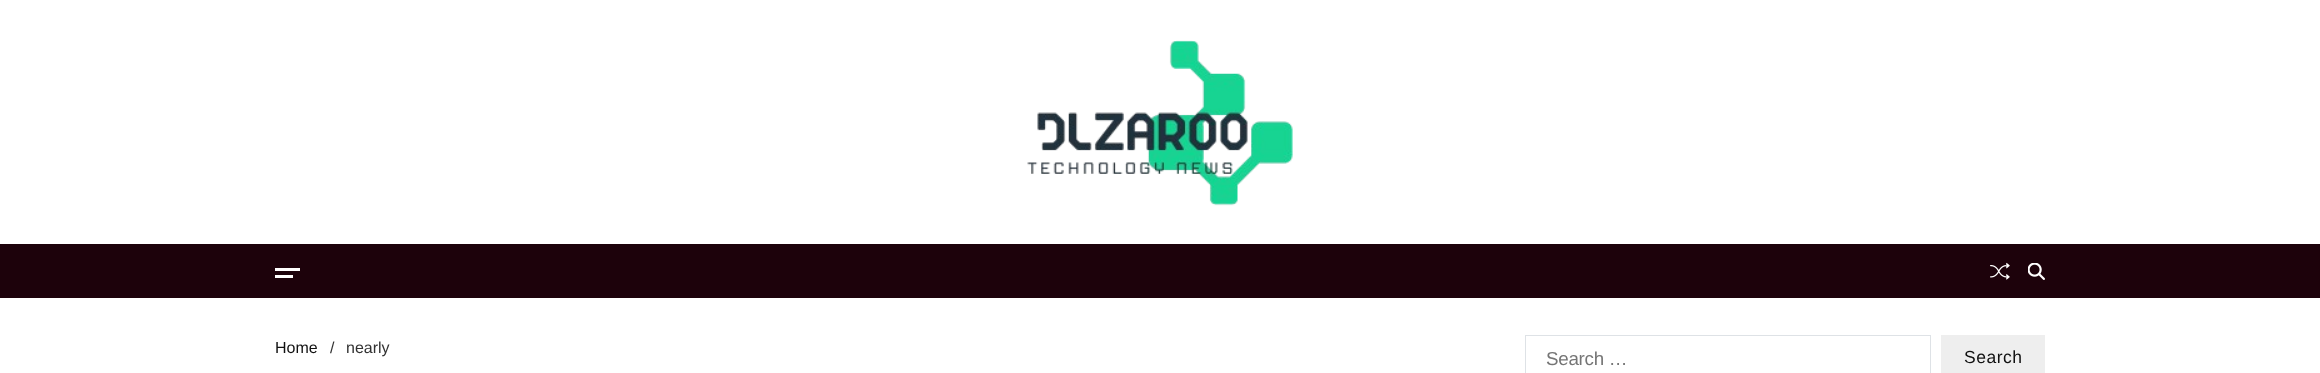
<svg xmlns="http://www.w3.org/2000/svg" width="2320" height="373">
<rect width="100%" height="100%" fill="#fff"/>
<image x="1027" y="40" width="266" height="166" href="media/1.png"/>
<rect y="244" width="2320" height="54" fill="#1d020b"/>
<rect x="275" y="268" width="25" height="3" fill="#fff"/>
<rect x="275" y="275" width="18" height="3" fill="#fff"/>
<image x="1990" y="262" width="20" height="18" href="media/2.png"/>
<image x="2028" y="263" width="17" height="17" href="media/3.png"/>
<text x="275" y="353" style="font-family:Liberation Sans;font-size:16px;fill:#111">Home</text>
<text x="330" y="353" style="font-family:Liberation Sans;font-size:16px;fill:#313131">/</text>
<text x="346" y="353" style="font-family:Liberation Sans;font-size:16px;fill:#313131">nearly</text>
<rect x="1525.5" y="335.5" width="405" height="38" fill="none" stroke="#dee2e6"/>
<text x="1546" y="365" style="font-family:Liberation Sans;font-size:18.75px;letter-spacing:-0.25px;fill:#757575">Search …</text>
<rect x="1941" y="335" width="104" height="38" fill="#eee"/>
<text x="1964" y="363" style="font-family:Liberation Sans;font-size:17.5px;letter-spacing:0.5px;fill:#111">Search</text>
</svg>
